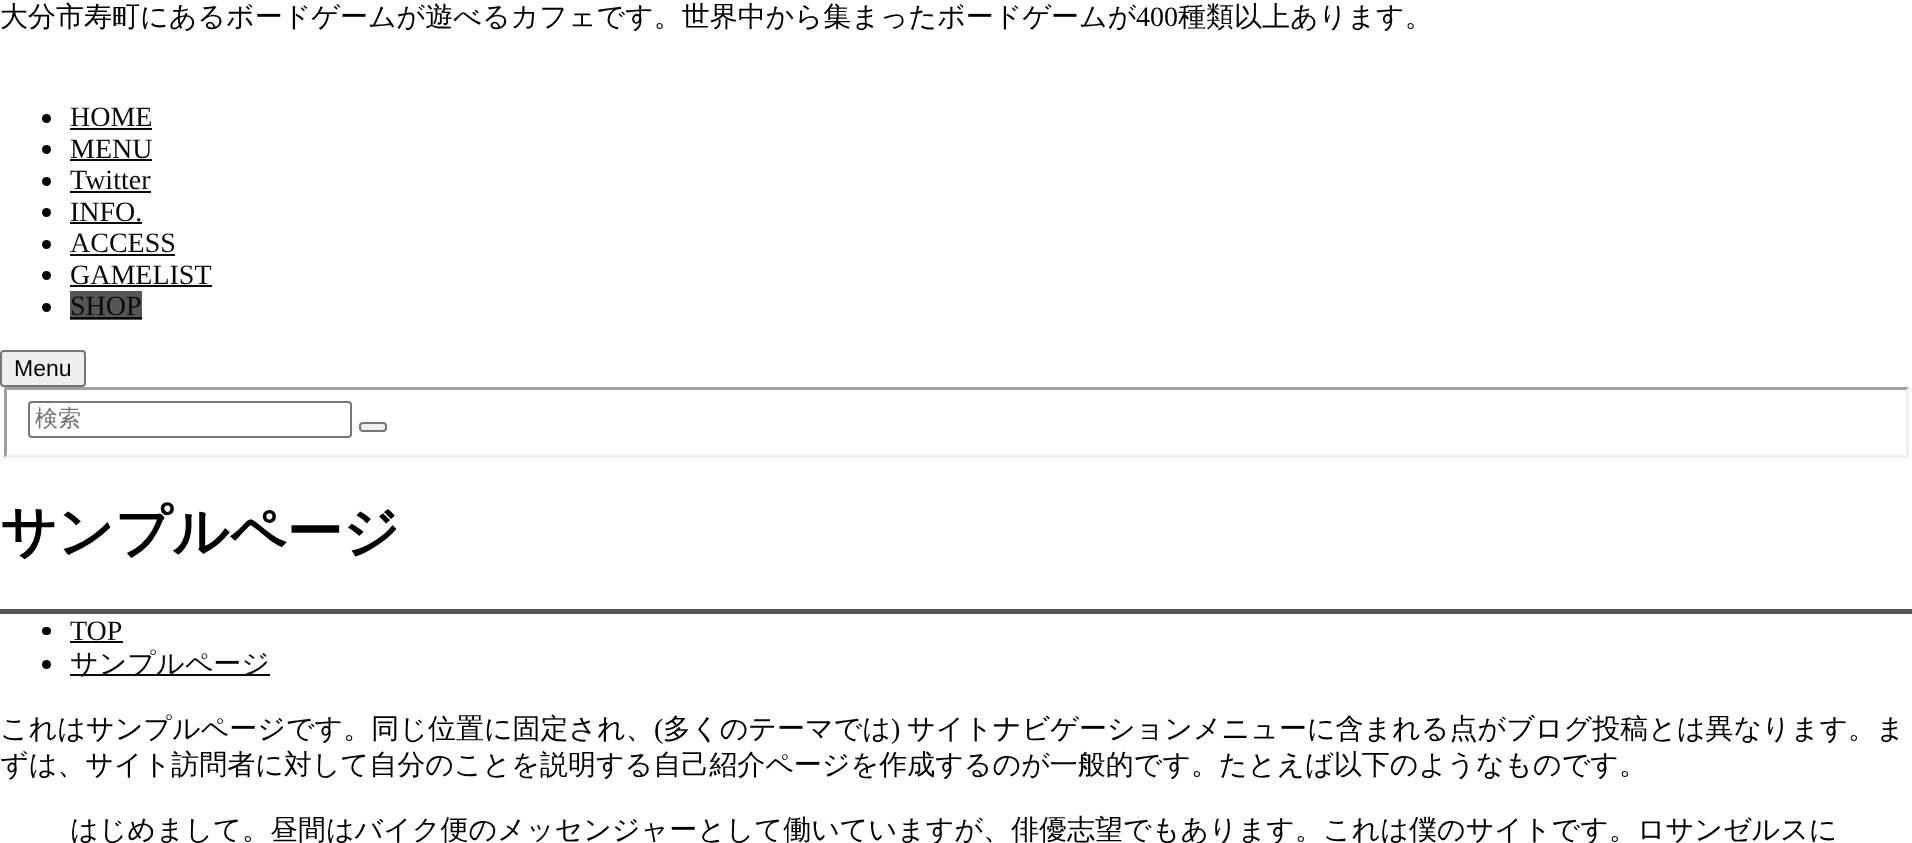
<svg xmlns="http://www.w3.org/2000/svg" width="1912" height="843">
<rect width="100%" height="100%" fill="#fff"/>
<text x="0" y="26" style="font-family:WenQuanYi Zen Hei;font-size:28px;font-weight:500;fill:#000">大分市寿町にあるボードゲームが遊べるカフェです。世界中から集まったボードゲームが</text>
<text x="1136" y="26" style="font-family:Liberation Serif;font-size:28px;fill:#000">400</text>
<text x="1178" y="26" style="font-family:WenQuanYi Zen Hei;font-size:28px;font-weight:500;fill:#000">種類以上あります。</text>
<circle cx="46.5" cy="118.5" r="4.5" fill="#000"/>
<text x="70" y="126" style="font-family:Liberation Serif;font-size:28px;fill:#0a0a0a">HOME</text>
<rect x="70" y="128" width="82" height="2" fill="#0a0a0a"/>
<circle cx="46.5" cy="149.5" r="4.5" fill="#000"/>
<text x="70" y="158" style="font-family:Liberation Serif;font-size:28px;fill:#0a0a0a">MENU</text>
<rect x="70" y="159" width="82" height="2" fill="#0a0a0a"/>
<circle cx="46.5" cy="181.5" r="4.5" fill="#000"/>
<text x="70" y="189" style="font-family:Liberation Serif;font-size:28px;fill:#0a0a0a">Twitter</text>
<rect x="70" y="191" width="81" height="2" fill="#0a0a0a"/>
<circle cx="46.5" cy="212.5" r="4.5" fill="#000"/>
<text x="70" y="221" style="font-family:Liberation Serif;font-size:28px;fill:#0a0a0a">INFO.</text>
<rect x="70" y="222" width="72" height="2" fill="#0a0a0a"/>
<circle cx="46.5" cy="244.5" r="4.5" fill="#000"/>
<text x="70" y="252" style="font-family:Liberation Serif;font-size:28px;fill:#0a0a0a">ACCESS</text>
<rect x="70" y="254" width="105" height="2" fill="#0a0a0a"/>
<circle cx="46.5" cy="275.5" r="4.5" fill="#000"/>
<text x="70" y="284" style="font-family:Liberation Serif;font-size:28px;fill:#0a0a0a">GAMELIST</text>
<rect x="70" y="285" width="142" height="2" fill="#0a0a0a"/>
<circle cx="46.5" cy="307.5" r="4.5" fill="#000"/>
<rect x="70" y="291" width="72" height="29" fill="#565656"/>
<text x="70" y="315" style="font-family:Liberation Serif;font-size:28px;fill:#0a0a0a">SHOP</text>
<rect x="70" y="317" width="72" height="2" fill="#0a0a0a"/>
<rect x="1" y="351" width="84" height="35" rx="3" fill="#efefef" stroke="#767676" stroke-width="2"/>
<text x="14" y="376" style="font-family:Liberation Sans;font-size:23px;fill:#000">Menu</text>
<path d="M4 387h1905l-3 3h-1899z" fill="#9f9f9f"/>
<path d="M1909 387v71l-3-3v-65z" fill="#efefef"/>
<path d="M1909 458h-1905l3-3h1899z" fill="#efefef"/>
<path d="M4 458v-71l3 3v65z" fill="#9f9f9f"/>
<rect x="29" y="402" width="322" height="35" rx="3" fill="none" stroke="#767676" stroke-width="2"/>
<text x="35" y="426" style="font-family:WenQuanYi Zen Hei;font-size:23px;font-weight:500;fill:#757575">検索</text>
<rect x="360" y="423" width="26" height="8" rx="3" fill="#efefef" stroke="#767676" stroke-width="2"/>
<text x="0" y="551" style="font-family:WenQuanYi Zen Hei;font-size:56px;font-weight:bold;fill:#000">サンプルページ</text>
<rect y="609" width="1912" height="5" fill="#565656"/>
<rect x="42" y="627" width="9" height="8" rx="4" fill="#000"/>
<text x="70" y="640" style="font-family:Liberation Serif;font-size:28px;fill:#0a0a0a">TOP</text>
<rect x="70" y="641" width="53" height="2" fill="#0a0a0a"/>
<circle cx="46.5" cy="664.5" r="4.5" fill="#000"/>
<rect x="70" y="674" width="200" height="2" fill="#0a0a0a"/>
<text x="70" y="673" style="font-family:WenQuanYi Zen Hei;font-size:28px;font-weight:500;fill:#0a0a0a">サンプルページ</text>
<text x="0" y="738" style="font-family:WenQuanYi Zen Hei;font-size:28px;font-weight:500;fill:#000">これはサンプルページです。同じ位置に固定され、</text>
<text x="654" y="738" style="font-family:Liberation Serif;font-size:28px;fill:#000">(</text>
<text x="663" y="738" style="font-family:WenQuanYi Zen Hei;font-size:28px;font-weight:500;fill:#000">多くのテーマでは</text>
<text x="891" y="738" style="font-family:Liberation Serif;font-size:28px;fill:#000">)</text>
<text x="907" y="738" style="font-family:WenQuanYi Zen Hei;font-size:28px;font-weight:500;fill:#000">サイトナビゲーションメニューに含まれる点がブログ投稿とは異なります。ま</text>
<text x="0" y="774" style="font-family:WenQuanYi Zen Hei;font-size:28px;font-weight:500;fill:#000">ずは、サイト訪問者に対して自分のことを説明する自己紹介ページを作成するのが一般的です。たとえば以下のようなものです。</text>
<text x="70" y="839" style="font-family:WenQuanYi Zen Hei;font-size:28px;font-weight:500;fill:#000">はじめまして。昼間はバイク便のメッセンジャーとして働いていますが、俳優志望でもあります。これは僕のサイトです。ロサンゼルスに</text>
</svg>
